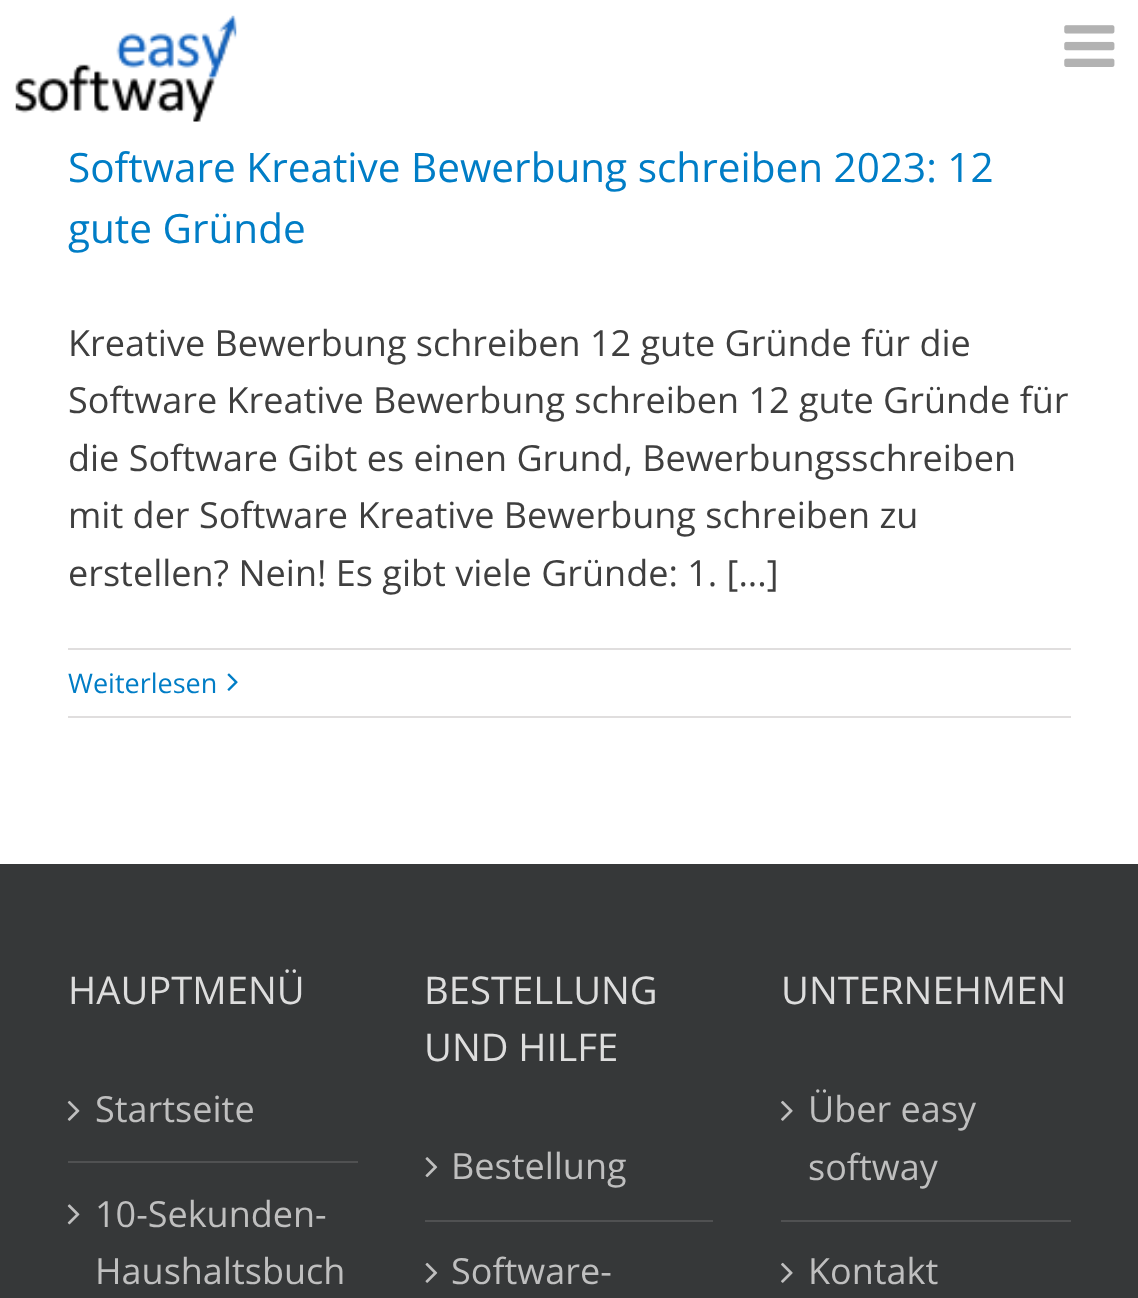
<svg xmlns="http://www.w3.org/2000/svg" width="1138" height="1298">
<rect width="100%" height="100%" fill="#fff"/>
<image x="15" y="15" width="222" height="107" href="media/1.png"/>
<image x="1064" y="25" width="51" height="42" href="media/2.png"/>
<text x="68" y="182" style="font-family:Open Sans;font-size:40.5px;fill:#007dc6">Software Kreative Bewerbung schreiben 2023: 12</text>
<text x="68" y="243" style="font-family:Open Sans;font-size:40.5px;fill:#007dc6">gute Gründe</text>
<text x="68" y="356" style="font-family:Open Sans;font-size:36px;fill:#3f3f3f">Kreative Bewerbung schreiben 12 gute Gründe für die</text>
<text x="68" y="413" style="font-family:Open Sans;font-size:36px;fill:#3f3f3f">Software Kreative Bewerbung schreiben 12 gute Gründe für</text>
<text x="68" y="471" style="font-family:Open Sans;font-size:36px;fill:#3f3f3f">die Software Gibt es einen Grund, Bewerbungsschreiben</text>
<text x="68" y="528" style="font-family:Open Sans;font-size:36px;fill:#3f3f3f">mit der Software Kreative Bewerbung schreiben zu</text>
<text x="68" y="586" style="font-family:Open Sans;font-size:36px;fill:#3f3f3f">erstellen? Nein! Es gibt viele Gründe: 1. [...]</text>
<rect x="68" y="648" width="1003" height="2" fill="#e0dede"/>
<rect x="68" y="716" width="1003" height="2" fill="#e0dede"/>
<text x="68" y="693" style="font-family:Open Sans;font-size:27px;fill:#007dc6">Weiterlesen</text>
<image x="227" y="673" width="11" height="18" href="media/3.png"/>
<rect y="864" width="1138" height="434" fill="#363839"/>
<text x="68" y="1004" style="font-family:Open Sans;font-size:38.25px;fill:#ddd">HAUPTMENÜ</text>
<rect x="68" y="1161" width="290" height="2" fill="#505152"/>
<image x="67" y="1100" width="13" height="21" href="media/4.png"/>
<text x="95" y="1122" style="font-family:Open Sans;font-size:36px;fill:#bfbfbf">Startseite</text>
<image x="67" y="1204" width="13" height="21" href="media/5.png"/>
<text x="95" y="1227" style="font-family:Open Sans;font-size:36px;fill:#bfbfbf">10-Sekunden-</text>
<text x="95" y="1284" style="font-family:Open Sans;font-size:36px;fill:#bfbfbf">Haushaltsbuch</text>
<text x="424" y="1004" style="font-family:Open Sans;font-size:38.25px;fill:#ddd">BESTELLUNG</text>
<text x="424" y="1061" style="font-family:Open Sans;font-size:38.25px;fill:#ddd">UND HILFE</text>
<rect x="425" y="1220" width="288" height="2" fill="#505152"/>
<image x="425" y="1157" width="13" height="21" href="media/6.png"/>
<text x="451" y="1179" style="font-family:Open Sans;font-size:36px;fill:#bfbfbf">Bestellung</text>
<image x="425" y="1262" width="13" height="21" href="media/7.png"/>
<text x="451" y="1284" style="font-family:Open Sans;font-size:36px;fill:#bfbfbf">Software-</text>
<text x="781" y="1004" style="font-family:Open Sans;font-size:38.25px;fill:#ddd">UNTERNEHMEN</text>
<rect x="781" y="1220" width="290" height="2" fill="#505152"/>
<image x="781" y="1100" width="12" height="21" href="media/8.png"/>
<text x="808" y="1122" style="font-family:Open Sans;font-size:36px;fill:#bfbfbf">Über easy</text>
<text x="808" y="1180" style="font-family:Open Sans;font-size:36px;fill:#bfbfbf">softway</text>
<image x="781" y="1262" width="12" height="21" href="media/8.png"/>
<text x="808" y="1284" style="font-family:Open Sans;font-size:36px;fill:#bfbfbf">Kontakt</text>
</svg>
